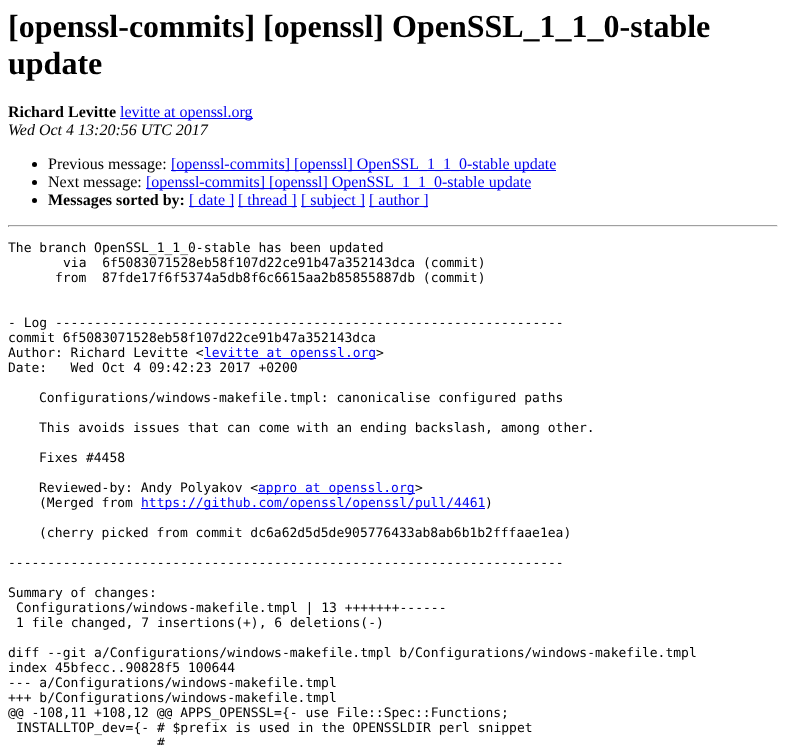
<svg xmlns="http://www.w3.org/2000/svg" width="786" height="745">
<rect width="100%" height="100%" fill="#fff"/>
<text x="8" y="37" style="font-family:Liberation Serif;font-size:32px;font-weight:bold;fill:#000">[openssl-commits] [openssl] OpenSSL_1_1_0-stable</text>
<text x="8" y="74" style="font-family:Liberation Serif;font-size:32px;font-weight:bold;fill:#000">update</text>
<text x="8" y="117" style="font-family:Liberation Serif;font-size:16px;font-weight:bold;fill:#000">Richard Levitte</text>
<rect x="120" y="118" width="133" height="1" fill="#00e"/>
<text x="120" y="117" style="font-family:Liberation Serif;font-size:16px;fill:#00e">levitte at openssl.org</text>
<text x="8" y="135" style="font-family:Liberation Serif;font-size:16px;font-style:italic;fill:#000">Wed Oct 4 13:20:56 UTC 2017</text>
<circle cx="34.5" cy="164.5" r="2.5" fill="#000"/>
<text x="48" y="169" style="font-family:Liberation Serif;font-size:16px;fill:#000">Previous message:</text>
<rect x="171" y="170" width="385" height="1" fill="#00e"/>
<text x="171" y="169" style="font-family:Liberation Serif;font-size:16px;fill:#00e">[openssl-commits] [openssl] OpenSSL_1_1_0-stable update</text>
<circle cx="34.5" cy="182.5" r="2.5" fill="#000"/>
<text x="48" y="187" style="font-family:Liberation Serif;font-size:16px;fill:#000">Next message:</text>
<rect x="146" y="188" width="385" height="1" fill="#00e"/>
<text x="146" y="187" style="font-family:Liberation Serif;font-size:16px;fill:#00e">[openssl-commits] [openssl] OpenSSL_1_1_0-stable update</text>
<circle cx="34.5" cy="200.5" r="2.5" fill="#000"/>
<text x="48" y="205" style="font-family:Liberation Serif;font-size:16px;font-weight:bold;fill:#000">Messages sorted by:</text>
<rect x="189" y="206" width="45" height="1" fill="#00e"/>
<text x="189" y="205" style="font-family:Liberation Serif;font-size:16px;fill:#00e">[ date ]</text>
<rect x="238" y="206" width="59" height="1" fill="#00e"/>
<text x="238" y="205" style="font-family:Liberation Serif;font-size:16px;fill:#00e">[ thread ]</text>
<rect x="301" y="206" width="64" height="1" fill="#00e"/>
<text x="301" y="205" style="font-family:Liberation Serif;font-size:16px;fill:#00e">[ subject ]</text>
<rect x="369" y="206" width="59" height="1" fill="#00e"/>
<text x="369" y="205" style="font-family:Liberation Serif;font-size:16px;fill:#00e">[ author ]</text>
<rect x="8" y="225" width="770" height="1" fill="#9f9f9f"/>
<rect x="777" y="225" width="1" height="2" fill="#eee"/>
<rect x="8" y="226" width="770" height="1" fill="#eee"/>
<rect x="8" y="225" width="1" height="2" fill="#9f9f9f"/>
<text x="8" y="252" style="font-family:DejaVu Sans Mono;font-size:13px;fill:#000">The branch OpenSSL_1_1_0-stable has been updated</text>
<text x="63" y="267" style="font-family:DejaVu Sans Mono;font-size:13px;fill:#000" xml:space="preserve">via  6f5083071528eb58f107d22ce91b47a352143dca (commit)</text>
<text x="55" y="282" style="font-family:DejaVu Sans Mono;font-size:13px;fill:#000" xml:space="preserve">from  87fde17f6f5374a5db8f6c6615aa2b85855887db (commit)</text>
<text x="8" y="327" style="font-family:DejaVu Sans Mono;font-size:13px;fill:#000">- Log -----------------------------------------------------------------</text>
<text x="8" y="342" style="font-family:DejaVu Sans Mono;font-size:13px;fill:#000">commit 6f5083071528eb58f107d22ce91b47a352143dca</text>
<text x="8" y="357" style="font-family:DejaVu Sans Mono;font-size:13px;fill:#000">Author: Richard Levitte &lt;</text>
<rect x="204" y="358" width="172" height="1" fill="#00e"/>
<text x="204" y="357" style="font-family:DejaVu Sans Mono;font-size:13px;fill:#00e">levitte at openssl.org</text>
<text x="376" y="357" style="font-family:DejaVu Sans Mono;font-size:13px;fill:#000">&gt;</text>
<text x="8" y="372" style="font-family:DejaVu Sans Mono;font-size:13px;fill:#000" xml:space="preserve">Date:   Wed Oct 4 09:42:23 2017 +0200</text>
<text x="39" y="402" style="font-family:DejaVu Sans Mono;font-size:13px;fill:#000">Configurations/windows-makefile.tmpl: canonicalise configured paths</text>
<text x="39" y="432" style="font-family:DejaVu Sans Mono;font-size:13px;fill:#000">This avoids issues that can come with an ending backslash, among other.</text>
<text x="39" y="462" style="font-family:DejaVu Sans Mono;font-size:13px;fill:#000">Fixes #4458</text>
<text x="39" y="492" style="font-family:DejaVu Sans Mono;font-size:13px;fill:#000">Reviewed-by: Andy Polyakov &lt;</text>
<rect x="258" y="493" width="157" height="1" fill="#00e"/>
<text x="258" y="492" style="font-family:DejaVu Sans Mono;font-size:13px;fill:#00e">appro at openssl.org</text>
<text x="415" y="492" style="font-family:DejaVu Sans Mono;font-size:13px;fill:#000">&gt;</text>
<text x="39" y="507" style="font-family:DejaVu Sans Mono;font-size:13px;fill:#000">(Merged from</text>
<rect x="141" y="508" width="344" height="1" fill="#00e"/>
<text x="141" y="507" style="font-family:DejaVu Sans Mono;font-size:13px;fill:#00e">https://github.com/openssl/openssl/pull/4461</text>
<text x="485" y="507" style="font-family:DejaVu Sans Mono;font-size:13px;fill:#000">)</text>
<text x="39" y="537" style="font-family:DejaVu Sans Mono;font-size:13px;fill:#000">(cherry picked from commit dc6a62d5d5de905776433ab8ab6b1b2fffaae1ea)</text>
<text x="8" y="567" style="font-family:DejaVu Sans Mono;font-size:13px;fill:#000">-----------------------------------------------------------------------</text>
<text x="8" y="597" style="font-family:DejaVu Sans Mono;font-size:13px;fill:#000">Summary of changes:</text>
<text x="16" y="612" style="font-family:DejaVu Sans Mono;font-size:13px;fill:#000">Configurations/windows-makefile.tmpl | 13 +++++++------</text>
<text x="16" y="627" style="font-family:DejaVu Sans Mono;font-size:13px;fill:#000">1 file changed, 7 insertions(+), 6 deletions(-)</text>
<text x="8" y="657" style="font-family:DejaVu Sans Mono;font-size:13px;fill:#000">diff --git a/Configurations/windows-makefile.tmpl b/Configurations/windows-makefile.tmpl</text>
<text x="8" y="672" style="font-family:DejaVu Sans Mono;font-size:13px;fill:#000">index 45bfecc..90828f5 100644</text>
<text x="8" y="687" style="font-family:DejaVu Sans Mono;font-size:13px;fill:#000">--- a/Configurations/windows-makefile.tmpl</text>
<text x="8" y="702" style="font-family:DejaVu Sans Mono;font-size:13px;fill:#000">+++ b/Configurations/windows-makefile.tmpl</text>
<text x="8" y="717" style="font-family:DejaVu Sans Mono;font-size:13px;fill:#000">@@ -108,11 +108,12 @@ APPS_OPENSSL={- use File::Spec::Functions;</text>
<text x="16" y="732" style="font-family:DejaVu Sans Mono;font-size:13px;fill:#000">INSTALLTOP_dev={- # $prefix is used in the OPENSSLDIR perl snippet</text>
<text x="157" y="747" style="font-family:DejaVu Sans Mono;font-size:13px;fill:#000">#</text>
</svg>
